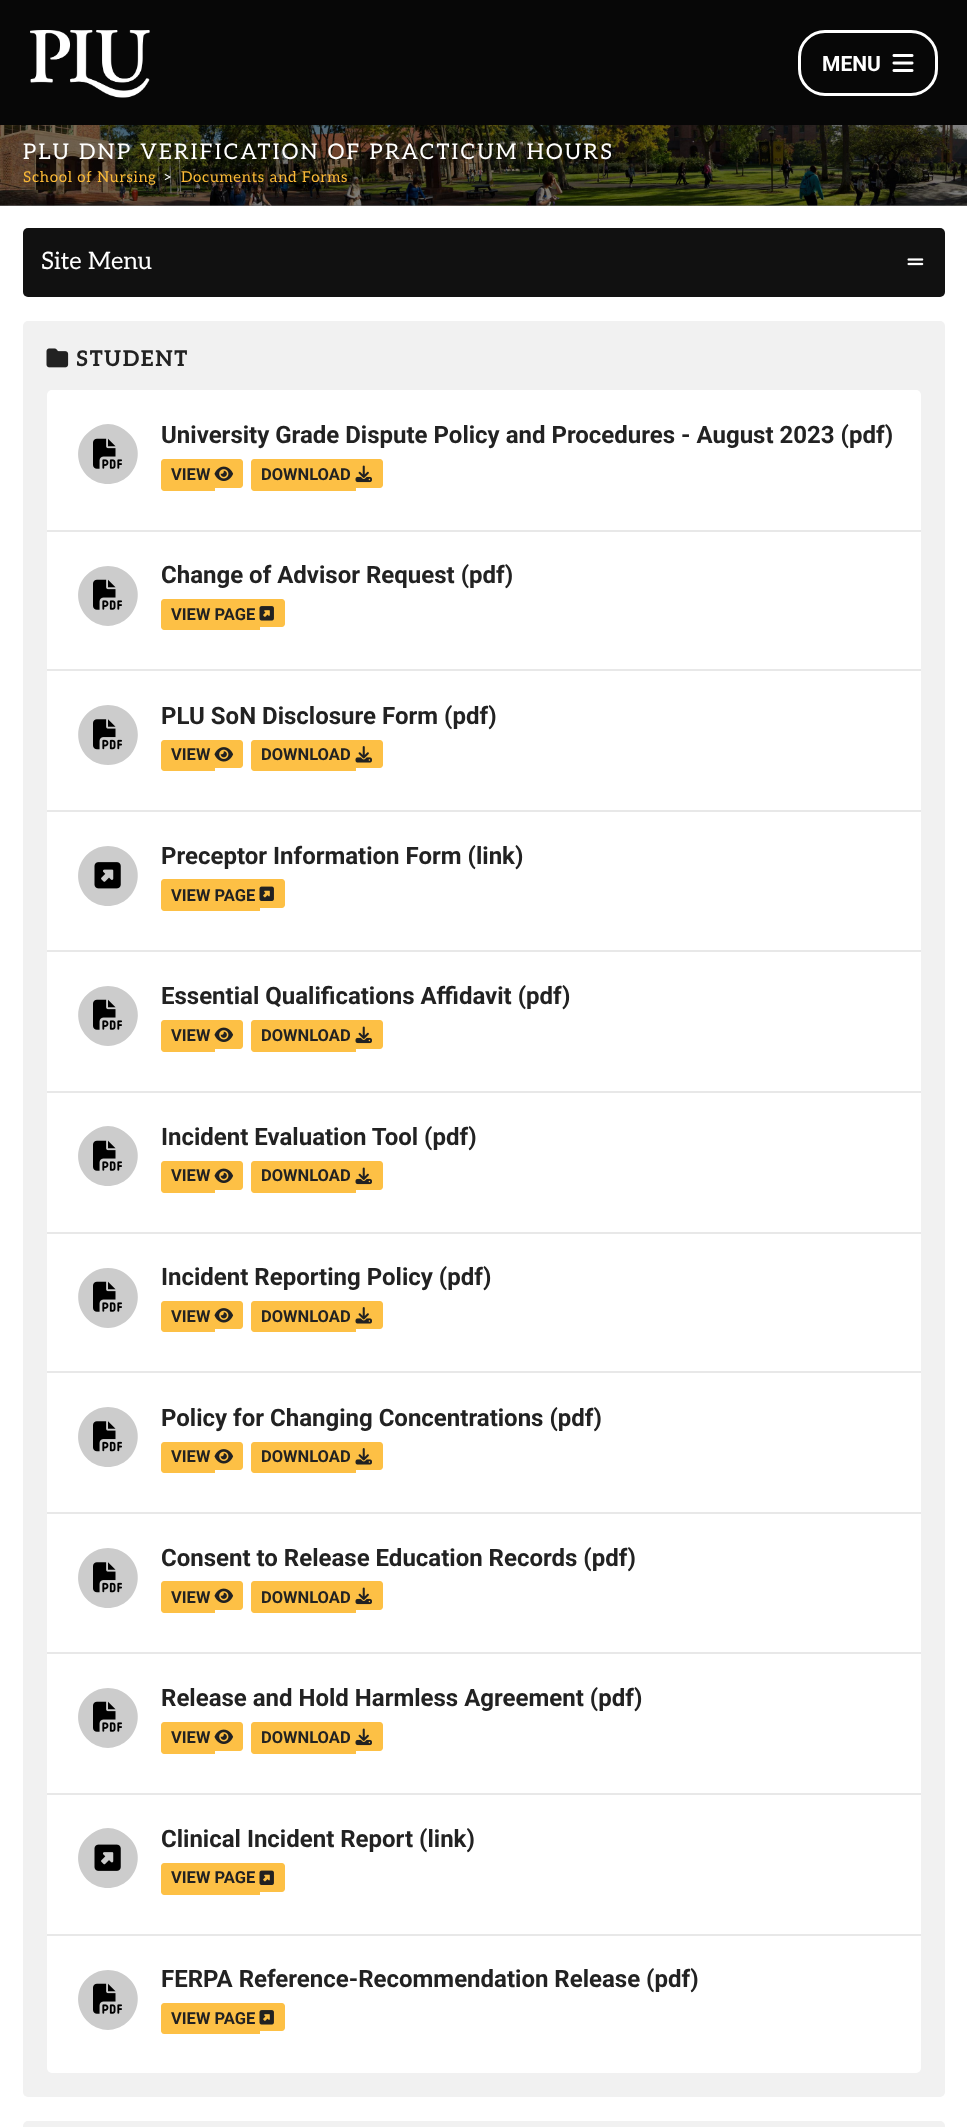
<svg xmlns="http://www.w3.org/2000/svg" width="967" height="2127">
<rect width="100%" height="100%" fill="#fff"/>
<rect y="205" width="967" height="1" fill="#808080"/>
<rect width="967" height="125" fill="#070707"/>
<image x="30" y="30" width="120" height="68" href="media/1.png"/>
<rect x="799.5" y="31.5" width="137" height="63" rx="25.5" fill="none" stroke="#fff" stroke-width="3"/>
<text x="822" y="71" style="font-family:Roboto;font-size:21px;font-weight:bold;fill:#fff">MENU</text>
<image x="892" y="54" width="22" height="18" href="media/2.png"/>
<image x="0" y="125" width="967" height="81" href="media/3.png"/>
<text x="23" y="159" style="font-family:Aleo;font-size:21.6px;letter-spacing:2.25px;fill:#fff">PLU DNP VERIFICATION OF PRACTICUM HOURS</text>
<text x="23" y="182" style="font-family:Aleo;font-size:15px;letter-spacing:0.75px;fill:#fbba37">School of Nursing</text>
<text x="164" y="182" style="font-family:Aleo;font-size:15px;letter-spacing:0.75px;fill:#fff">&gt;</text>
<text x="181" y="182" style="font-family:Aleo;font-size:15px;letter-spacing:0.75px;fill:#fbba37">Documents and Forms</text>
<rect x="23" y="228" width="922" height="69" rx="5" fill="#111"/>
<text x="41" y="269" style="font-family:Aleo;font-size:24px;fill:#fff">Site Menu</text>
<image x="907" y="258" width="17" height="8" href="media/4.png"/>
<rect x="23" y="321" width="922" height="1776" rx="5" fill="#f1f1f1"/>
<image x="46" y="348" width="23" height="20" href="media/5.png"/>
<text x="76" y="366" style="font-family:Aleo;font-size:21.6px;font-weight:bold;letter-spacing:1.5px;fill:#222">STUDENT</text>
<rect x="47" y="390" width="874" height="1683" rx="5" fill="#fff"/>
<rect x="47" y="530" width="874" height="2" fill="#e8e8e8"/>
<path d="M108 484c28 0 41-36 18-53c-5-4-11-7-18-7c-7 0-13 3-18 7c-23 17-10 53 18 53z" fill="#ccc"/>
<image x="93" y="438" width="29" height="31" href="media/6.png"/>
<text x="161" y="443" style="font-family:Roboto;font-size:24px;font-weight:bold;fill:#222">University Grade Dispute Policy and Procedures - August 2023 (pdf)</text>
<path d="M164 459h51v32h-51c-1.5 0-3-1.5-3-3v-26c0-1.5 1.5-3 3-3z" fill="#fdc045"/>
<path d="M215 459h25c1.5 0 3 1.5 3 3v23c0 1.5-1.5 3-3 3h-25z" fill="#fdc045"/>
<text x="171" y="480" style="font-family:Roboto;font-size:16.5px;font-weight:bold;fill:#222">VIEW</text>
<image x="214" y="466" width="20" height="15" href="media/7.png"/>
<path d="M254 459h102v32h-102c-1.5 0-3-1.5-3-3v-26c0-1.5 1.5-3 3-3z" fill="#fdc045"/>
<path d="M356 459h24c1.5 0 3 1.5 3 3v23c0 1.5-1.5 3-3 3h-24z" fill="#fdc045"/>
<text x="261" y="480" style="font-family:Roboto;font-size:16.5px;font-weight:bold;fill:#222">DOWNLOAD</text>
<image x="355" y="465" width="17" height="18" href="media/8.png"/>
<rect x="47" y="669" width="874" height="2" fill="#e8e8e8"/>
<path d="M108 626c28-1 41-37 18-54c-5-4-11-6-18-6c-7 0-13 2-18 6c-23 17-10 53 18 54z" fill="#ccc"/>
<image x="93" y="579" width="29" height="31" href="media/6.png"/>
<text x="161" y="583" style="font-family:Roboto;font-size:24px;font-weight:bold;fill:#222">Change of Advisor Request (pdf)</text>
<path d="M164 599h96v31h-96c-1.5 0-3-1.5-3-3v-25c0-1.5 1.5-3 3-3z" fill="#fdc045"/>
<path d="M260 599h22c1.5 0 3 1.5 3 3v22c0 1.5-1.5 3-3 3h-22z" fill="#fdc045"/>
<text x="171" y="620" style="font-family:Roboto;font-size:16.5px;font-weight:bold;fill:#222">VIEW PAGE</text>
<image x="259" y="606" width="15" height="15" href="media/9.png"/>
<rect x="47" y="810" width="874" height="2" fill="#e8e8e8"/>
<path d="M108 765c28 0 41-36 18-54c-5-4-11-6-18-6c-7 0-13 2-18 6c-23 18-10 54 18 54z" fill="#ccc"/>
<image x="93" y="719" width="29" height="31" href="media/10.png"/>
<text x="161" y="724" style="font-family:Roboto;font-size:24px;font-weight:bold;fill:#222">PLU SoN Disclosure Form (pdf)</text>
<path d="M164 740h51v31h-51c-1.5 0-3-1.5-3-3v-25c0-1.5 1.5-3 3-3z" fill="#fdc045"/>
<path d="M215 740h25c1.5 0 3 1.5 3 3v22c0 1.5-1.5 3-3 3h-25z" fill="#fdc045"/>
<text x="171" y="760" style="font-family:Roboto;font-size:16.5px;font-weight:bold;fill:#222">VIEW</text>
<image x="214" y="747" width="20" height="15" href="media/11.png"/>
<path d="M254 740h102v31h-102c-1.5 0-3-1.5-3-3v-25c0-1.5 1.5-3 3-3z" fill="#fdc045"/>
<path d="M356 740h24c1.5 0 3 1.5 3 3v22c0 1.5-1.5 3-3 3h-24z" fill="#fdc045"/>
<text x="261" y="760" style="font-family:Roboto;font-size:16.5px;font-weight:bold;fill:#222">DOWNLOAD</text>
<image x="355" y="746" width="17" height="17" href="media/12.png"/>
<rect x="47" y="950" width="874" height="2" fill="#e8e8e8"/>
<path d="M108 906c28 0 41-36 18-54c-5-4-11-6-18-6c-7 0-13 2-18 6c-23 18-10 54 18 54z" fill="#ccc"/>
<image x="94" y="862" width="27" height="27" href="media/13.png"/>
<text x="161" y="864" style="font-family:Roboto;font-size:24px;font-weight:bold;fill:#222">Preceptor Information Form (link)</text>
<path d="M164 879h96v32h-96c-1.5 0-3-1.5-3-3v-26c0-1.5 1.5-3 3-3z" fill="#fdc045"/>
<path d="M260 879h22c1.5 0 3 1.5 3 3v23c0 1.5-1.5 3-3 3h-22z" fill="#fdc045"/>
<text x="171" y="901" style="font-family:Roboto;font-size:16.5px;font-weight:bold;fill:#222">VIEW PAGE</text>
<image x="259" y="886" width="15" height="15" href="media/14.png"/>
<rect x="47" y="1091" width="874" height="2" fill="#e8e8e8"/>
<path d="M108 1046c28-1 41-37 18-54c-5-4-11-6-18-6c-7 0-13 2-18 6c-23 17-10 53 18 54z" fill="#ccc"/>
<image x="93" y="999" width="29" height="31" href="media/6.png"/>
<text x="161" y="1004" style="font-family:Roboto;font-size:24px;font-weight:bold;fill:#222">Essential Qualifications Affidavit (pdf)</text>
<path d="M164 1020h51v32h-51c-1.5 0-3-1.5-3-3v-26c0-1.5 1.5-3 3-3z" fill="#fdc045"/>
<path d="M215 1020h25c1.5 0 3 1.5 3 3v23c0 1.5-1.5 3-3 3h-25z" fill="#fdc045"/>
<text x="171" y="1041" style="font-family:Roboto;font-size:16.5px;font-weight:bold;fill:#222">VIEW</text>
<image x="214" y="1027" width="20" height="15" href="media/7.png"/>
<path d="M254 1020h102v32h-102c-1.5 0-3-1.5-3-3v-26c0-1.5 1.5-3 3-3z" fill="#fdc045"/>
<path d="M356 1020h24c1.5 0 3 1.5 3 3v23c0 1.5-1.5 3-3 3h-24z" fill="#fdc045"/>
<text x="261" y="1041" style="font-family:Roboto;font-size:16.5px;font-weight:bold;fill:#222">DOWNLOAD</text>
<image x="355" y="1026" width="17" height="18" href="media/8.png"/>
<rect x="47" y="1232" width="874" height="2" fill="#e8e8e8"/>
<path d="M108 1186c28 0 41-36 18-53c-5-4-11-7-18-7c-7 0-13 3-18 7c-23 17-10 53 18 53z" fill="#ccc"/>
<image x="93" y="1140" width="29" height="31" href="media/6.png"/>
<text x="161" y="1145" style="font-family:Roboto;font-size:24px;font-weight:bold;fill:#222">Incident Evaluation Tool (pdf)</text>
<path d="M164 1161h51v32h-51c-1.5 0-3-1.5-3-3v-26c0-1.5 1.5-3 3-3z" fill="#fdc045"/>
<path d="M215 1161h25c1.5 0 3 1.5 3 3v23c0 1.5-1.5 3-3 3h-25z" fill="#fdc045"/>
<text x="171" y="1181" style="font-family:Roboto;font-size:16.5px;font-weight:bold;fill:#222">VIEW</text>
<image x="214" y="1168" width="20" height="15" href="media/7.png"/>
<path d="M254 1161h102v32h-102c-1.5 0-3-1.5-3-3v-26c0-1.5 1.5-3 3-3z" fill="#fdc045"/>
<path d="M356 1161h24c1.5 0 3 1.5 3 3v23c0 1.5-1.5 3-3 3h-24z" fill="#fdc045"/>
<text x="261" y="1181" style="font-family:Roboto;font-size:16.5px;font-weight:bold;fill:#222">DOWNLOAD</text>
<image x="355" y="1167" width="17" height="18" href="media/8.png"/>
<rect x="47" y="1371" width="874" height="2" fill="#e8e8e8"/>
<path d="M108 1328c28-1 41-37 18-54c-5-4-11-6-18-6c-7 0-13 2-18 6c-23 17-10 53 18 54z" fill="#ccc"/>
<image x="93" y="1281" width="29" height="31" href="media/6.png"/>
<text x="161" y="1285" style="font-family:Roboto;font-size:24px;font-weight:bold;fill:#222">Incident Reporting Policy (pdf)</text>
<path d="M164 1301h51v31h-51c-1.5 0-3-1.5-3-3v-25c0-1.5 1.5-3 3-3z" fill="#fdc045"/>
<path d="M215 1301h25c1.5 0 3 1.5 3 3v22c0 1.5-1.5 3-3 3h-25z" fill="#fdc045"/>
<text x="171" y="1322" style="font-family:Roboto;font-size:16.5px;font-weight:bold;fill:#222">VIEW</text>
<image x="214" y="1308" width="20" height="15" href="media/11.png"/>
<path d="M254 1301h102v31h-102c-1.5 0-3-1.5-3-3v-25c0-1.5 1.5-3 3-3z" fill="#fdc045"/>
<path d="M356 1301h24c1.5 0 3 1.5 3 3v22c0 1.5-1.5 3-3 3h-24z" fill="#fdc045"/>
<text x="261" y="1322" style="font-family:Roboto;font-size:16.5px;font-weight:bold;fill:#222">DOWNLOAD</text>
<image x="355" y="1307" width="17" height="17" href="media/12.png"/>
<rect x="47" y="1512" width="874" height="2" fill="#e8e8e8"/>
<path d="M108 1467c28 0 41-36 18-54c-5-4-11-6-18-6c-7 0-13 2-18 6c-23 18-10 54 18 54z" fill="#ccc"/>
<image x="93" y="1421" width="29" height="31" href="media/10.png"/>
<text x="161" y="1426" style="font-family:Roboto;font-size:24px;font-weight:bold;fill:#222">Policy for Changing Concentrations (pdf)</text>
<path d="M164 1442h51v31h-51c-1.5 0-3-1.5-3-3v-25c0-1.5 1.5-3 3-3z" fill="#fdc045"/>
<path d="M215 1442h25c1.5 0 3 1.5 3 3v22c0 1.5-1.5 3-3 3h-25z" fill="#fdc045"/>
<text x="171" y="1462" style="font-family:Roboto;font-size:16.5px;font-weight:bold;fill:#222">VIEW</text>
<image x="214" y="1449" width="20" height="15" href="media/11.png"/>
<path d="M254 1442h102v31h-102c-1.5 0-3-1.5-3-3v-25c0-1.5 1.5-3 3-3z" fill="#fdc045"/>
<path d="M356 1442h24c1.5 0 3 1.5 3 3v22c0 1.5-1.5 3-3 3h-24z" fill="#fdc045"/>
<text x="261" y="1462" style="font-family:Roboto;font-size:16.5px;font-weight:bold;fill:#222">DOWNLOAD</text>
<image x="355" y="1448" width="17" height="17" href="media/12.png"/>
<rect x="47" y="1652" width="874" height="2" fill="#e8e8e8"/>
<path d="M108 1608c28 0 41-36 18-54c-5-4-11-6-18-6c-7 0-13 2-18 6c-23 18-10 54 18 54z" fill="#ccc"/>
<image x="93" y="1562" width="29" height="31" href="media/10.png"/>
<text x="161" y="1566" style="font-family:Roboto;font-size:24px;font-weight:bold;fill:#222">Consent to Release Education Records (pdf)</text>
<path d="M164 1581h51v32h-51c-1.5 0-3-1.5-3-3v-26c0-1.5 1.5-3 3-3z" fill="#fdc045"/>
<path d="M215 1581h25c1.5 0 3 1.5 3 3v23c0 1.5-1.5 3-3 3h-25z" fill="#fdc045"/>
<text x="171" y="1603" style="font-family:Roboto;font-size:16.5px;font-weight:bold;fill:#222">VIEW</text>
<image x="214" y="1588" width="20" height="15" href="media/7.png"/>
<path d="M254 1581h102v32h-102c-1.5 0-3-1.5-3-3v-26c0-1.5 1.5-3 3-3z" fill="#fdc045"/>
<path d="M356 1581h24c1.5 0 3 1.5 3 3v23c0 1.5-1.5 3-3 3h-24z" fill="#fdc045"/>
<text x="261" y="1603" style="font-family:Roboto;font-size:16.5px;font-weight:bold;fill:#222">DOWNLOAD</text>
<image x="355" y="1587" width="17" height="18" href="media/8.png"/>
<rect x="47" y="1793" width="874" height="2" fill="#e8e8e8"/>
<path d="M108 1748c28-1 41-37 18-54c-5-4-11-6-18-6c-7 0-13 2-18 6c-23 17-10 53 18 54z" fill="#ccc"/>
<image x="93" y="1701" width="29" height="31" href="media/6.png"/>
<text x="161" y="1706" style="font-family:Roboto;font-size:24px;font-weight:bold;fill:#222">Release and Hold Harmless Agreement (pdf)</text>
<path d="M164 1722h51v32h-51c-1.5 0-3-1.5-3-3v-26c0-1.5 1.5-3 3-3z" fill="#fdc045"/>
<path d="M215 1722h25c1.5 0 3 1.5 3 3v23c0 1.5-1.5 3-3 3h-25z" fill="#fdc045"/>
<text x="171" y="1743" style="font-family:Roboto;font-size:16.5px;font-weight:bold;fill:#222">VIEW</text>
<image x="214" y="1729" width="20" height="15" href="media/7.png"/>
<path d="M254 1722h102v32h-102c-1.5 0-3-1.5-3-3v-26c0-1.5 1.5-3 3-3z" fill="#fdc045"/>
<path d="M356 1722h24c1.5 0 3 1.5 3 3v23c0 1.5-1.5 3-3 3h-24z" fill="#fdc045"/>
<text x="261" y="1743" style="font-family:Roboto;font-size:16.5px;font-weight:bold;fill:#222">DOWNLOAD</text>
<image x="355" y="1728" width="17" height="18" href="media/8.png"/>
<rect x="47" y="1934" width="874" height="2" fill="#e8e8e8"/>
<path d="M108 1888c28 0 41-36 18-53c-5-4-11-7-18-7c-7 0-13 3-18 7c-23 17-10 53 18 53z" fill="#ccc"/>
<image x="94" y="1844" width="27" height="27" href="media/15.png"/>
<text x="161" y="1847" style="font-family:Roboto;font-size:24px;font-weight:bold;fill:#222">Clinical Incident Report (link)</text>
<path d="M164 1863h96v32h-96c-1.5 0-3-1.5-3-3v-26c0-1.5 1.5-3 3-3z" fill="#fdc045"/>
<path d="M260 1863h22c1.5 0 3 1.5 3 3v23c0 1.5-1.5 3-3 3h-22z" fill="#fdc045"/>
<text x="171" y="1883" style="font-family:Roboto;font-size:16.5px;font-weight:bold;fill:#222">VIEW PAGE</text>
<image x="259" y="1870" width="15" height="15" href="media/14.png"/>
<path d="M108 2030c28-1 41-37 18-54c-5-4-11-6-18-6c-7 0-13 2-18 6c-23 17-10 53 18 54z" fill="#ccc"/>
<image x="93" y="1983" width="29" height="31" href="media/6.png"/>
<text x="161" y="1987" style="font-family:Roboto;font-size:24px;font-weight:bold;fill:#222">FERPA Reference-Recommendation Release (pdf)</text>
<path d="M164 2003h96v31h-96c-1.5 0-3-1.5-3-3v-25c0-1.5 1.5-3 3-3z" fill="#fdc045"/>
<path d="M260 2003h22c1.5 0 3 1.5 3 3v22c0 1.5-1.5 3-3 3h-22z" fill="#fdc045"/>
<text x="171" y="2024" style="font-family:Roboto;font-size:16.5px;font-weight:bold;fill:#222">VIEW PAGE</text>
<image x="259" y="2010" width="15" height="15" href="media/9.png"/>
<rect x="23" y="2121" width="922" height="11" rx="5" fill="#f1f1f1"/>
</svg>
